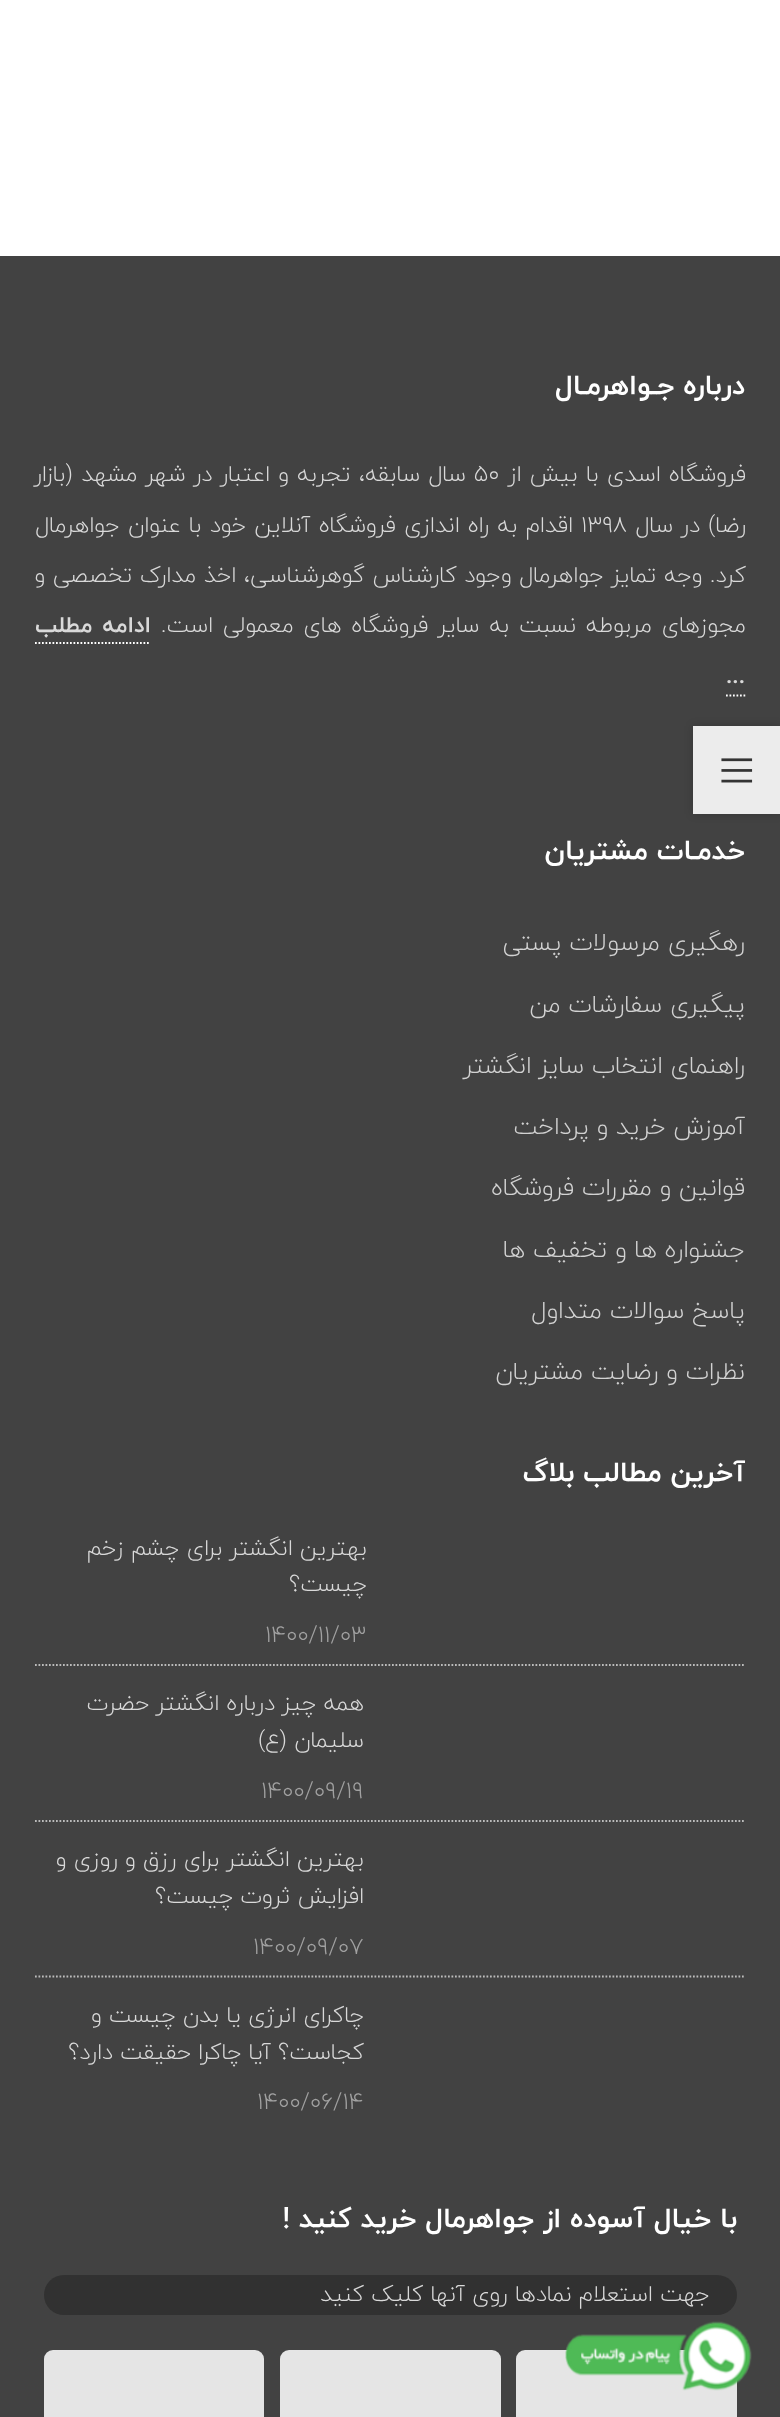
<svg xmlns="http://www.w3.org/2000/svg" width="780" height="2417">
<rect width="100%" height="100%" fill="#fff"/>
<rect y="256" width="780" height="2161" fill="#424242"/>
<text x="745" y="394" style="font-family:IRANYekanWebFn;font-size:28px;font-weight:bold;direction:rtl;fill:#fff">درباره جـواهرمـال</text>
<text x="746" y="481" word-spacing="1" style="font-family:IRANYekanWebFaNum;font-size:22.75px;font-weight:300;direction:rtl;fill:#d9d9d9">فروشگاه اسدی با بیش از</text>
<text x="474" y="481" style="font-family:IRANYekanWebFaNum;font-size:22.75px;font-weight:300;fill:#d9d9d9">50</text>
<text x="466" y="481" word-spacing="1" style="font-family:IRANYekanWebFaNum;font-size:22.75px;font-weight:300;direction:rtl;fill:#d9d9d9">سال سابقه، تجربه و اعتبار در شهر مشهد (بازار</text>
<text x="746" y="532" word-spacing="1" style="font-family:IRANYekanWebFaNum;font-size:22.75px;font-weight:300;direction:rtl;fill:#d9d9d9">رضا) در سال</text>
<text x="581" y="532" style="font-family:IRANYekanWebFaNum;font-size:22.75px;font-weight:300;fill:#d9d9d9">1398</text>
<text x="573" y="532" word-spacing="1" style="font-family:IRANYekanWebFaNum;font-size:22.75px;font-weight:300;direction:rtl;fill:#d9d9d9">اقدام به راه اندازی فروشگاه آنلاین خود با عنوان جواهرمال</text>
<text x="746" y="582" word-spacing="0.5" style="font-family:IRANYekanWebFaNum;font-size:22.75px;font-weight:300;direction:rtl;fill:#d9d9d9">کرد. وجه تمایز جواهرمال وجود کارشناس گوهرشناسی، اخذ مدارک تخصصی و</text>
<text x="746" y="632" word-spacing="2.5" style="font-family:IRANYekanWebFaNum;font-size:22.75px;font-weight:300;direction:rtl;fill:#d9d9d9">مجوزهای مربوطه نسبت به سایر فروشگاه های معمولی است.</text>
<text x="151" y="632" word-spacing="3" style="font-family:IRANYekanWebFn;font-size:22.75px;font-weight:bold;direction:rtl;fill:#d9d9d9">ادامه مطلب</text>
<path d="M35 643h115.5" fill="none" stroke="#fff" stroke-width="1.8" stroke-dasharray="1.75 1.75"/>
<text x="726" y="683" style="font-family:IRANYekanWebFn;font-size:22.75px;font-weight:bold;fill:#d9d9d9">...</text>
<path d="M726 695.5h19.5" fill="none" stroke="#fff" stroke-width="1.8" stroke-dasharray="1.75 1.75"/>
<text x="745" y="859" style="font-family:IRANYekanWebFn;font-size:28px;font-weight:bold;direction:rtl;fill:#fff">خدمـات مشتریان</text>
<text x="745" y="950" style="font-family:IRANYekanWebFaNum;font-size:24.5px;font-weight:300;direction:rtl;fill:#d2d2d2">رهگیری مرسولات پستی</text>
<text x="745" y="1012" style="font-family:IRANYekanWebFaNum;font-size:24.5px;font-weight:300;direction:rtl;fill:#d2d2d2">پیگیری سفارشات من</text>
<text x="745" y="1073" style="font-family:IRANYekanWebFaNum;font-size:24.5px;font-weight:300;direction:rtl;fill:#d2d2d2">راهنمای انتخاب سایز انگشتر</text>
<text x="745" y="1134" style="font-family:IRANYekanWebFaNum;font-size:24.5px;font-weight:300;direction:rtl;fill:#d2d2d2">آموزش خرید و پرداخت</text>
<text x="745" y="1195" style="font-family:IRANYekanWebFaNum;font-size:24.5px;font-weight:300;direction:rtl;fill:#d2d2d2">قوانین و مقررات فروشگاه</text>
<text x="745" y="1257" style="font-family:IRANYekanWebFaNum;font-size:24.5px;font-weight:300;direction:rtl;fill:#d2d2d2">جشنواره ها و تخفیف ها</text>
<text x="745" y="1318" style="font-family:IRANYekanWebFaNum;font-size:24.5px;font-weight:300;direction:rtl;fill:#d2d2d2">پاسخ سوالات متداول</text>
<text x="745" y="1379" style="font-family:IRANYekanWebFaNum;font-size:24.5px;font-weight:300;direction:rtl;fill:#d2d2d2">نظرات و رضایت مشتریان</text>
<text x="745" y="1481" style="font-family:IRANYekanWebFn;font-size:28px;font-weight:bold;direction:rtl;fill:#fff">آخرین مطالب بلاگ</text>
<path d="M35 1665h710.5" fill="none" stroke="#bbb" stroke-width="1.8" stroke-dasharray="1.75 1.75"/>
<text x="367" y="1555" style="font-family:IRANYekanWebFaNum;font-size:22.75px;font-weight:300;direction:rtl;fill:#d9d9d9">بهترین انگشتر برای چشم زخم</text>
<text x="367" y="1591" style="font-family:IRANYekanWebFaNum;font-size:22.75px;font-weight:300;direction:rtl;fill:#d9d9d9">چیست؟</text>
<text x="265" y="1642" style="font-family:IRANYekanWebFaNum;font-size:23.5px;font-weight:300;fill:#a1a1a1">۱۴۰۰/۱۱/۰۳</text>
<path d="M35 1821h710.5" fill="none" stroke="#bbb" stroke-width="1.8" stroke-dasharray="1.75 1.75"/>
<text x="364" y="1710" style="font-family:IRANYekanWebFaNum;font-size:22.75px;font-weight:300;direction:rtl;fill:#d9d9d9">همه چیز درباره انگشتر حضرت</text>
<text x="364" y="1747" style="font-family:IRANYekanWebFaNum;font-size:22.75px;font-weight:300;direction:rtl;fill:#d9d9d9">سلیمان (ع)</text>
<text x="261" y="1798" style="font-family:IRANYekanWebFaNum;font-size:23.5px;font-weight:300;fill:#a1a1a1">۱۴۰۰/۰۹/۱۹</text>
<path d="M35 1976.5h710.5" fill="none" stroke="#bbb" stroke-width="1.8" stroke-dasharray="1.75 1.75"/>
<text x="364" y="1866" style="font-family:IRANYekanWebFaNum;font-size:22.75px;font-weight:300;direction:rtl;fill:#d9d9d9">بهترین انگشتر برای رزق و روزی و</text>
<text x="364" y="1903" style="font-family:IRANYekanWebFaNum;font-size:22.75px;font-weight:300;direction:rtl;fill:#d9d9d9">افزایش ثروت چیست؟</text>
<text x="253" y="1954" style="font-family:IRANYekanWebFaNum;font-size:23.5px;font-weight:300;fill:#a1a1a1">۱۴۰۰/۰۹/۰۷</text>
<text x="364" y="2022" style="font-family:IRANYekanWebFaNum;font-size:22.75px;font-weight:300;direction:rtl;fill:#d9d9d9">چاکرای انرژی یا بدن چیست و</text>
<text x="364" y="2059" style="font-family:IRANYekanWebFaNum;font-size:22.75px;font-weight:300;direction:rtl;fill:#d9d9d9">کجاست؟ آیا چاکرا حقیقت دارد؟</text>
<text x="257" y="2109" style="font-family:IRANYekanWebFaNum;font-size:23.5px;font-weight:300;fill:#a1a1a1">۱۴۰۰/۰۶/۱۴</text>
<text x="737" y="2227" style="font-family:IRANYekanWebFn;font-size:28px;font-weight:bold;direction:rtl;fill:#fff">با خیال آسوده از جواهرمال خرید کنید !</text>
<rect x="44" y="2275" width="693" height="40" rx="20" fill="#313131"/>
<text x="710" y="2301" style="font-family:IRANYekanWebFaNum;font-size:22.75px;font-weight:300;direction:rtl;fill:#d9d9d9">جهت استعلام نمادها روی آنها کلیک کنید</text>
<rect x="516" y="2350" width="221" height="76" rx="9" fill="#e5e5e5"/>
<rect x="280" y="2350" width="221" height="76" rx="9" fill="#e5e5e5"/>
<rect x="44" y="2350" width="220" height="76" rx="9" fill="#e5e5e5"/>
<image x="565" y="2321" width="187" height="70" href="media/1.png"/>
<rect x="693" y="726" width="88" height="88" fill="#0000002b" filter="blur(4.5px)"/>
<rect x="693" y="726" width="87" height="88" fill="#ececec"/>
<image x="721" y="758" width="32" height="25" href="media/2.png"/>
</svg>
